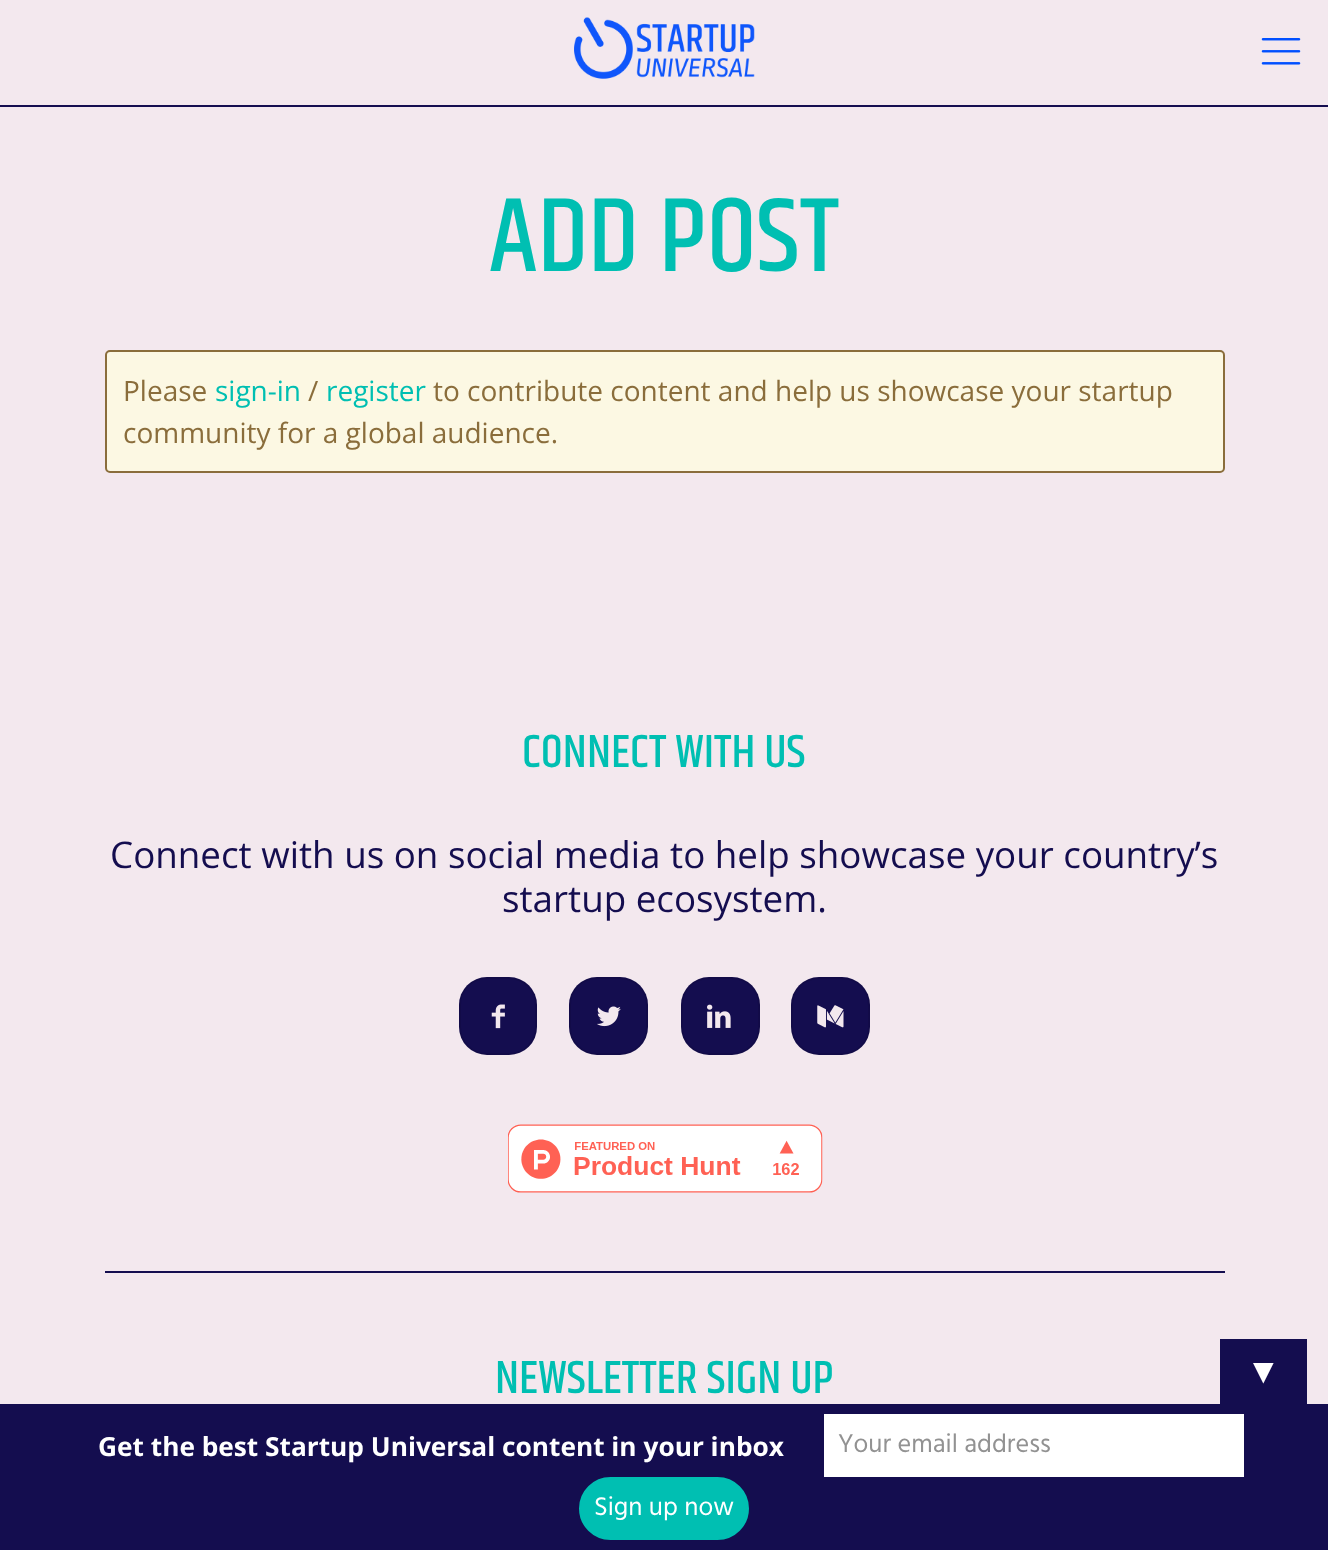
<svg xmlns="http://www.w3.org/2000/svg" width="1328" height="1550">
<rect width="100%" height="100%" fill="#f3e8ee"/>
<rect y="105" width="1328" height="2" fill="#140d4f"/>
<image x="574" y="17" width="181" height="62" href="media/1.png"/>
<image x="1261" y="38" width="40" height="27" href="media/2.png"/>
<text x="489" y="271" style="font-family:Khand;font-size:107px;font-weight:500;fill:#00bfb2">ADD POST</text>
<rect x="106" y="351" width="1118" height="121" rx="4" fill="#fcf8e3" stroke="#8a6d3b" stroke-width="2"/>
<text x="123" y="401" style="font-family:Open Sans;font-size:28px;fill:#8a6d3b">Please</text>
<text x="215" y="401" style="font-family:Open Sans;font-size:28px;fill:#00bfb2">sign-in</text>
<text x="308" y="401" style="font-family:Open Sans;font-size:28px;fill:#8a6d3b">/</text>
<text x="326" y="401" style="font-family:Open Sans;font-size:28px;fill:#00bfb2">register</text>
<text x="433" y="401" style="font-family:Open Sans;font-size:28px;fill:#8a6d3b">to contribute content and help us showcase your startup</text>
<text x="123" y="443" style="font-family:Open Sans;font-size:28px;fill:#8a6d3b">community for a global audience.</text>
<rect x="105" y="1271" width="1120" height="2" fill="#140d4f"/>
<text x="522" y="767" style="font-family:Khand;font-size:47.25px;font-weight:500;fill:#00bfb2">CONNECT WITH US</text>
<text x="110" y="868" style="font-family:Open Sans;font-size:36.75px;fill:#140d4f">Connect with us on social media to help showcase your country’s</text>
<text x="502" y="912" style="font-family:Open Sans;font-size:36.75px;fill:#140d4f">startup ecosystem.</text>
<rect x="459" y="977" width="78" height="78" rx="28" fill="#140d4f"/>
<rect x="460" y="978" width="76" height="76" rx="27" fill="none" stroke="#00000014" stroke-width="2"/>
<image x="491" y="1004" width="14" height="25" href="media/3.png"/>
<rect x="569" y="977" width="79" height="78" rx="28" fill="#140d4f"/>
<rect x="570" y="978" width="77" height="76" rx="27" fill="none" stroke="#00000014" stroke-width="2"/>
<image x="597" y="1006" width="24" height="21" href="media/4.png"/>
<rect x="681" y="977" width="79" height="78" rx="28" fill="#140d4f"/>
<rect x="682" y="978" width="77" height="76" rx="27" fill="none" stroke="#00000014" stroke-width="2"/>
<image x="707" y="1004" width="24" height="24" href="media/5.png"/>
<rect x="791" y="977" width="79" height="78" rx="28" fill="#140d4f"/>
<rect x="792" y="978" width="77" height="76" rx="27" fill="none" stroke="#00000014" stroke-width="2"/>
<image x="817" y="1005" width="27" height="23" href="media/6.png"/>
<image x="508" y="1124" width="315" height="69" href="media/7.png"/>
<text x="495" y="1393" style="font-family:Khand;font-size:47.25px;font-weight:500;fill:#00bfb2">NEWSLETTER SIGN UP</text>
<rect x="1220" y="1339" width="87" height="65" fill="#140d4f"/>
<text x="1246" y="1383" style="font-family:Liberation Sans;font-size:35px;fill:#fff">▼</text>
<rect y="1404" width="1328" height="146" fill="#140d4f"/>
<text x="98" y="1456" style="font-family:Open Sans;font-size:26.25px;font-weight:bold;fill:#fff">Get the best Startup Universal content in your inbox</text>
<rect x="824" y="1414" width="420" height="63" fill="#fff"/>
<text x="838" y="1452" style="font-family:Hind;font-size:26.25px;fill:#929292">Your email address</text>
<rect x="580" y="1478" width="168" height="61" rx="30.5" fill="#00bfb2" stroke="#00bfb2" stroke-width="2"/>
<text x="594" y="1515" style="font-family:Hind;font-size:26.25px;fill:#fff">Sign up now</text>
</svg>
